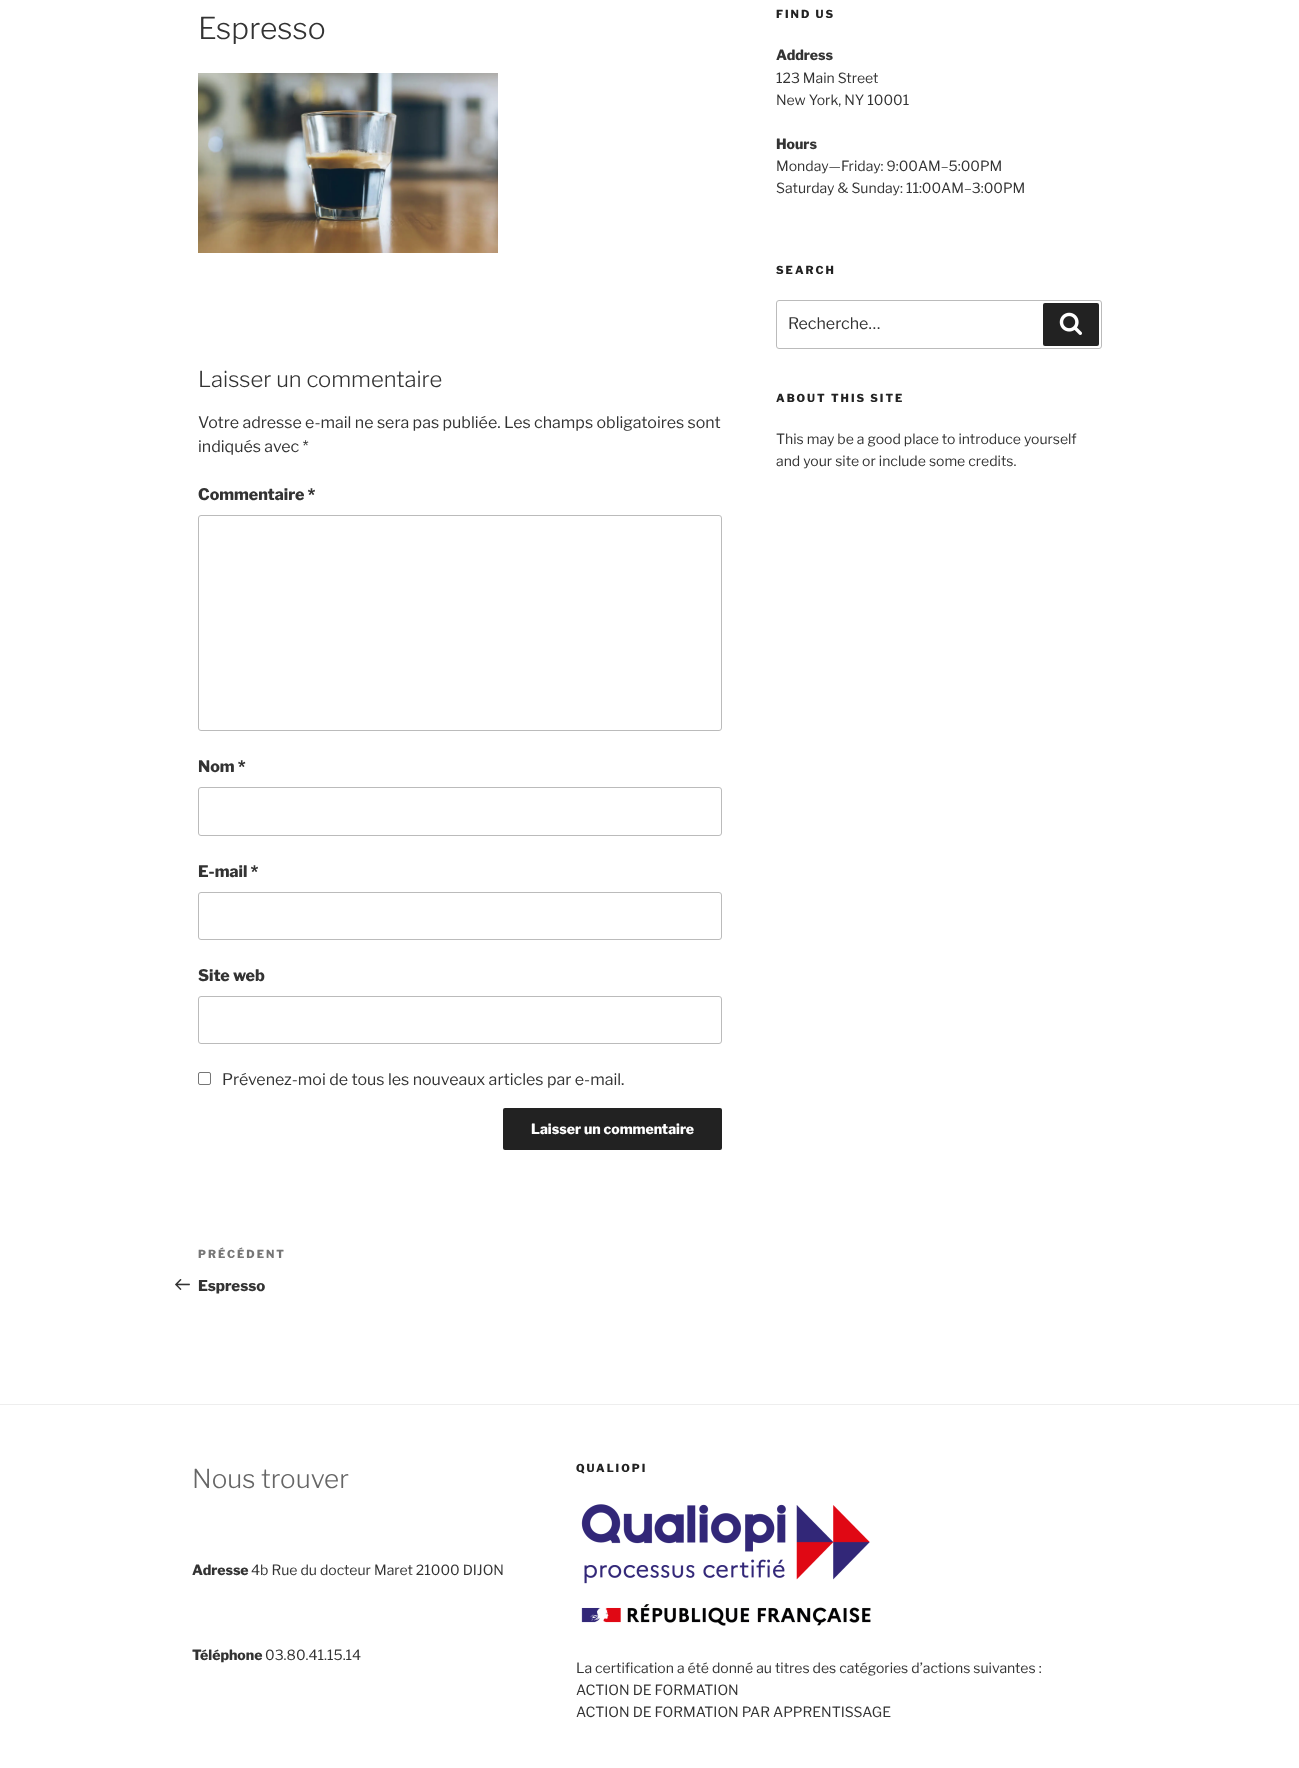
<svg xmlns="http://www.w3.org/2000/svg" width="1299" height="1768">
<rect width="100%" height="100%" fill="#fff"/>
<text x="198" y="39" style="font-family:'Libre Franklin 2';font-size:30px;font-weight:100;fill:#333">Espresso</text>
<image x="198" y="73" width="300" height="180" href="media/1.png"/>
<text x="198" y="387" style="font-family:'Libre Franklin 2';font-size:22px;font-weight:100;fill:#333">Laisser un commentaire</text>
<text x="198" y="428" style="font-family:'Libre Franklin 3';font-size:16px;font-weight:100;fill:#333">Votre adresse e-mail ne sera pas publiée. Les champs obligatoires sont</text>
<text x="198" y="452" style="font-family:'Libre Franklin 3';font-size:16px;font-weight:100;fill:#333">indiqués avec *</text>
<text x="198" y="500" style="font-family:Libre Franklin;font-size:16px;font-weight:100;fill:#333">Commentaire *</text>
<rect x="198.5" y="515.5" width="523" height="215" rx="2.5" fill="none" stroke="#bbb"/>
<text x="198" y="772" style="font-family:Libre Franklin;font-size:16px;font-weight:100;fill:#333">Nom *</text>
<rect x="198.5" y="787.5" width="523" height="48" rx="2.5" fill="none" stroke="#bbb"/>
<text x="198" y="877" style="font-family:Libre Franklin;font-size:16px;font-weight:100;fill:#333">E-mail *</text>
<rect x="198.5" y="892.5" width="523" height="47" rx="2.5" fill="none" stroke="#bbb"/>
<text x="198" y="981" style="font-family:Libre Franklin;font-size:16px;font-weight:100;fill:#333">Site web</text>
<rect x="198.5" y="996.5" width="523" height="47" rx="2.5" fill="none" stroke="#bbb"/>
<rect x="198.5" y="1072.5" width="12" height="12" rx="1.5" fill="none" stroke="#767676"/>
<text x="222" y="1085" style="font-family:'Libre Franklin 3';font-size:16px;font-weight:100;fill:#333">Prévenez-moi de tous les nouveaux articles par e-mail.</text>
<rect x="503" y="1108" width="219" height="42" rx="2" fill="#222"/>
<text x="531" y="1134" style="font-family:Libre Franklin;font-size:14px;font-weight:100;fill:#fff">Laisser un commentaire</text>
<text x="198" y="1258" style="font-family:Libre Franklin;font-size:11px;font-weight:100;letter-spacing:2px;fill:#767676">PRÉCÉDENT</text>
<image x="175" y="1279" width="15" height="11" href="media/2.png"/>
<text x="198" y="1291" style="font-family:Libre Franklin;font-size:15px;font-weight:100;fill:#333">Espresso</text>
<text x="776" y="18" style="font-family:Libre Franklin;font-size:11px;font-weight:100;letter-spacing:2px;fill:#222">FIND US</text>
<text x="776" y="60" style="font-family:Libre Franklin;font-size:14px;font-weight:100;fill:#333">Address</text>
<text x="776" y="83" style="font-family:'Libre Franklin 3';font-size:14px;font-weight:100;fill:#333">123 Main Street</text>
<text x="776" y="105" style="font-family:'Libre Franklin 3';font-size:14px;font-weight:100;fill:#333">New York, NY 10001</text>
<text x="776" y="149" style="font-family:Libre Franklin;font-size:14px;font-weight:100;fill:#333">Hours</text>
<text x="776" y="171" style="font-family:'Libre Franklin 3';font-size:14px;font-weight:100;fill:#333">Monday—Friday: 9:00AM–5:00PM</text>
<text x="776" y="193" style="font-family:'Libre Franklin 3';font-size:14px;font-weight:100;fill:#333">Saturday &amp; Sunday: 11:00AM–3:00PM</text>
<text x="776" y="274" style="font-family:Libre Franklin;font-size:11px;font-weight:100;letter-spacing:2px;fill:#222">SEARCH</text>
<rect x="776.5" y="300.5" width="325" height="48" rx="2.5" fill="none" stroke="#bbb"/>
<text x="788" y="329" style="font-family:'Libre Franklin 3';font-size:16px;font-weight:100;fill:#333">Recherche…</text>
<rect x="1043" y="303" width="56" height="43" rx="2" fill="#222"/>
<image x="1059" y="312" width="23" height="23" href="media/3.png"/>
<text x="776" y="402" style="font-family:Libre Franklin;font-size:11px;font-weight:100;letter-spacing:2px;fill:#222">ABOUT THIS SITE</text>
<text x="776" y="444" style="font-family:'Libre Franklin 3';font-size:14px;font-weight:100;fill:#333">This may be a good place to introduce yourself</text>
<text x="776" y="466" style="font-family:'Libre Franklin 3';font-size:14px;font-weight:100;fill:#333">and your site or include some credits.</text>
<rect y="1404" width="1299" height="1" fill="#eee"/>
<text x="192" y="1488" style="font-family:'Libre Franklin 2';font-size:26px;font-weight:100;fill:#666">Nous trouver</text>
<text x="192" y="1575" style="font-family:Libre Franklin;font-size:14px;font-weight:100;fill:#333">Adresse</text>
<text x="251" y="1575" style="font-family:'Libre Franklin 3';font-size:14px;font-weight:100;fill:#333">4b Rue du docteur Maret 21000 DIJON</text>
<text x="192" y="1660" style="font-family:Libre Franklin;font-size:14px;font-weight:100;fill:#333">Téléphone</text>
<text x="265" y="1660" style="font-family:'Libre Franklin 3';font-size:14px;font-weight:100;fill:#333">03.80.41.15.14</text>
<text x="576" y="1472" style="font-family:Libre Franklin;font-size:11px;font-weight:100;letter-spacing:2px;fill:#222">QUALIOPI</text>
<image x="581" y="1504" width="290" height="122" href="media/4.png"/>
<text x="576" y="1673" style="font-family:'Libre Franklin 3';font-size:14px;font-weight:100;fill:#333">La certification a été donné au titres des catégories d’actions suivantes :</text>
<text x="576" y="1695" style="font-family:'Libre Franklin 3';font-size:14px;font-weight:100;fill:#333">ACTION DE FORMATION</text>
<text x="576" y="1717" style="font-family:'Libre Franklin 3';font-size:14px;font-weight:100;fill:#333">ACTION DE FORMATION PAR APPRENTISSAGE</text>
</svg>
